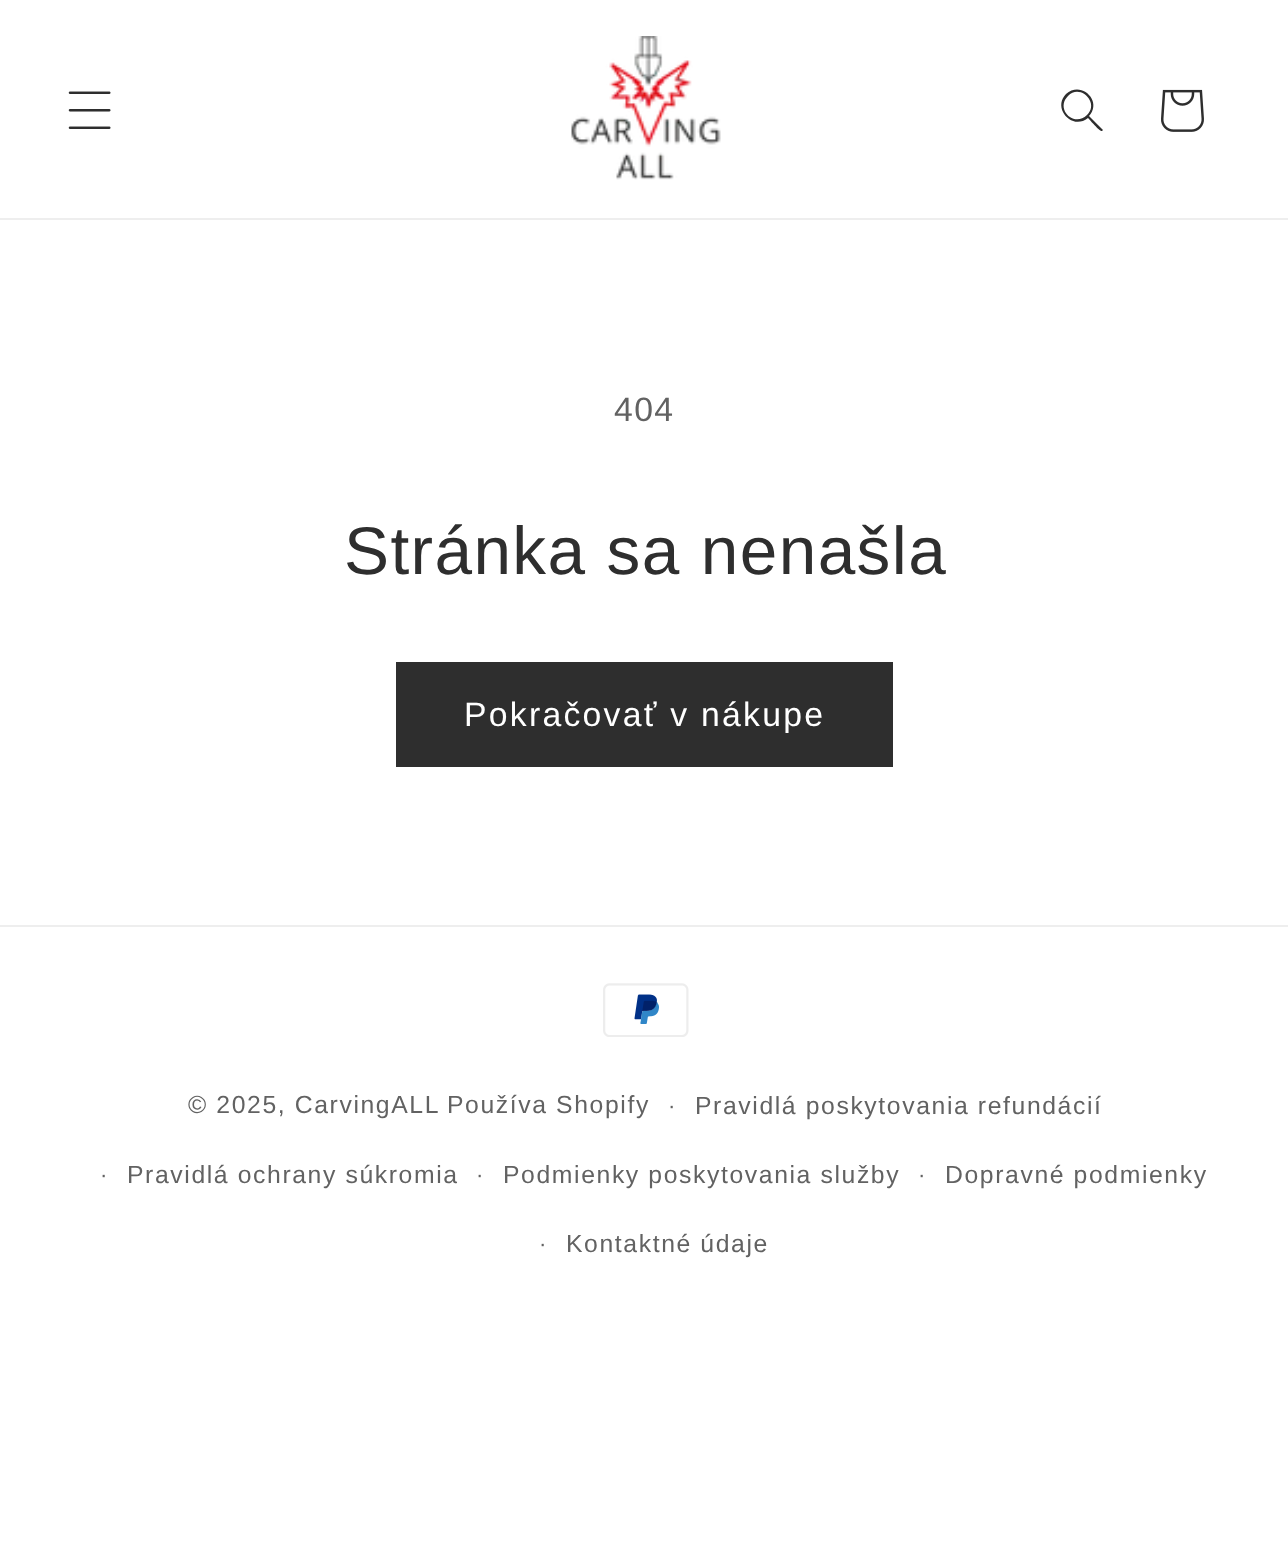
<svg xmlns="http://www.w3.org/2000/svg" width="1288" height="1552">
<rect width="100%" height="100%" fill="#fff"/>
<rect y="218" width="1288" height="2" fill="#eee"/>
<image x="68" y="91" width="43" height="38" href="media/1.png"/>
<image x="571" y="36" width="150" height="144" href="media/2.png"/>
<path d="M1087 115c-13 13-32-6-19-19c12-13 32 7 19 19zm1 3c-16 13-36-10-22-24c15-14 37 7 23 22l14 14l-1 1c-2 1-12-11-14-13z" fill="#2e2e2e" fill-rule="evenodd"/>
<image x="1161" y="89" width="43" height="43" href="media/3.png"/>
<text x="614" y="421" style="font-family:Liberation Sans;font-size:33.75px;letter-spacing:1.4px;fill:#626262">404</text>
<text x="344" y="574" style="font-family:Liberation Sans;font-size:67.5px;letter-spacing:1.4px;fill:#2e2e2e">Stránka sa nenašla</text>
<rect x="396" y="662" width="497" height="105" fill="#2e2e2e"/>
<text x="464" y="726" style="font-family:Liberation Sans;font-size:33.75px;letter-spacing:2.25px;fill:#fff">Pokračovať v nákupe</text>
<rect y="925" width="1288" height="2" fill="#eee"/>
<image x="603" y="983" width="86" height="54" href="media/4.png"/>
<text x="447" y="1113" style="font-family:Liberation Sans;font-size:24.75px;letter-spacing:1.6px;fill:#626262">Používa Shopify</text>
<text x="668" y="1113" style="font-family:Liberation Sans;font-size:22px;letter-spacing:1.6px;fill:#626262">·</text>
<text x="695" y="1114" style="font-family:Liberation Sans;font-size:24.75px;letter-spacing:1.6px;fill:#626262">Pravidlá poskytovania refundácií</text>
<text x="100" y="1182" style="font-family:Liberation Sans;font-size:22px;letter-spacing:1.6px;fill:#626262">·</text>
<text x="127" y="1183" style="font-family:Liberation Sans;font-size:24.75px;letter-spacing:1.6px;fill:#626262">Pravidlá ochrany súkromia</text>
<text x="476" y="1182" style="font-family:Liberation Sans;font-size:22px;letter-spacing:1.6px;fill:#626262">·</text>
<text x="503" y="1183" style="font-family:Liberation Sans;font-size:24.75px;letter-spacing:1.6px;fill:#626262">Podmienky poskytovania služby</text>
<text x="918" y="1182" style="font-family:Liberation Sans;font-size:22px;letter-spacing:1.6px;fill:#626262">·</text>
<text x="945" y="1183" style="font-family:Liberation Sans;font-size:24.75px;letter-spacing:1.6px;fill:#626262">Dopravné podmienky</text>
<text x="539" y="1251" style="font-family:Liberation Sans;font-size:22px;letter-spacing:1.6px;fill:#626262">·</text>
<text x="566" y="1252" style="font-family:Liberation Sans;font-size:24.75px;letter-spacing:1.6px;fill:#626262">Kontaktné údaje</text>
<text x="188" y="1113" style="font-family:Liberation Sans;font-size:24.75px;letter-spacing:1.6px;fill:#626262">© 2025, CarvingALL</text>
</svg>
